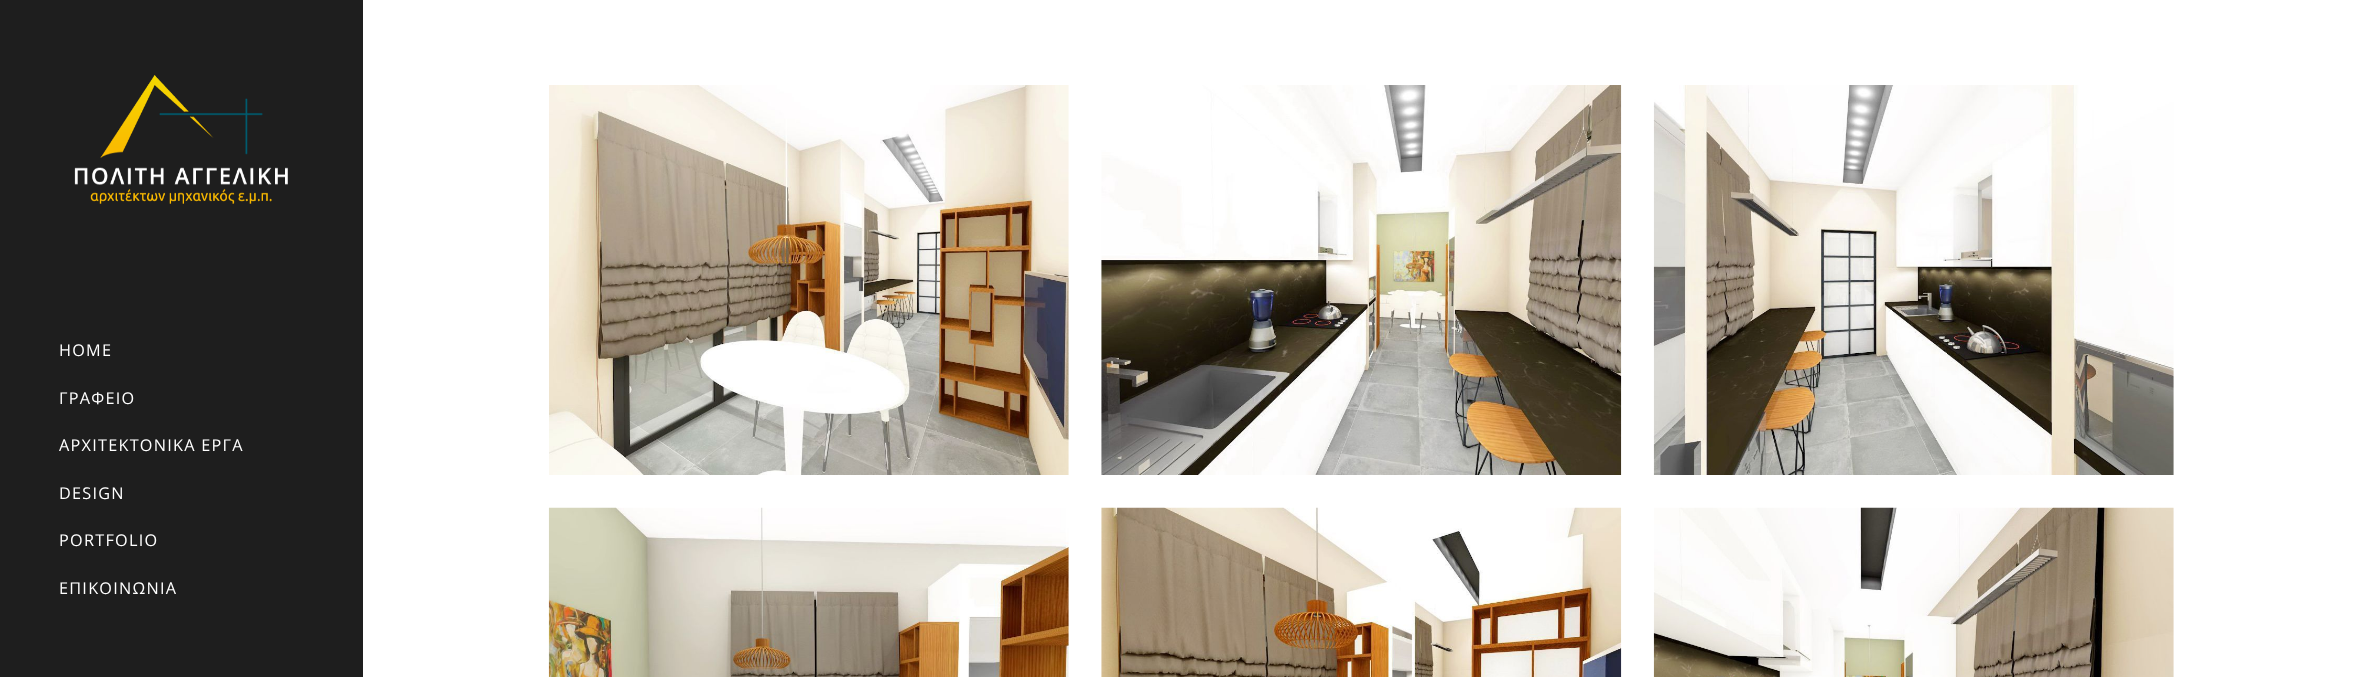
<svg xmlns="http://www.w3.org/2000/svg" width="2359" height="677">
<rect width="100%" height="100%" fill="#fff"/>
<rect width="363" height="677" fill="#1e1e1e"/>
<image x="74" y="75" width="214" height="129" href="media/1.png"/>
<text x="59" y="356" style="font-family:Open Sans;font-size:16.25px;letter-spacing:1.25px;fill:#fff">HOME</text>
<text x="59" y="404" style="font-family:Open Sans;font-size:16.25px;letter-spacing:1.25px;fill:#fff">ΓΡΑΦΕΙΟ</text>
<text x="59" y="451" style="font-family:Open Sans;font-size:16.25px;letter-spacing:1.25px;fill:#fff">ΑΡΧΙΤΕΚΤΟΝΙΚΑ ΕΡΓΑ</text>
<text x="59" y="499" style="font-family:Open Sans;font-size:16.25px;letter-spacing:1.25px;fill:#fff">DESIGN</text>
<text x="59" y="546" style="font-family:Open Sans;font-size:16.25px;letter-spacing:1.25px;fill:#fff">PORTFOLIO</text>
<text x="59" y="594" style="font-family:Open Sans;font-size:16.25px;letter-spacing:1.25px;fill:#fff">ΕΠΙΚΟΙΝΩΝΙΑ</text>
<image x="549" y="85" width="520" height="390" href="media/2.png"/>
<image x="1101" y="85" width="521" height="390" href="media/3.png"/>
<image x="1653" y="85" width="521" height="390" href="media/4.png"/>
<image x="548" y="507" width="521" height="170" href="media/5.png"/>
<image x="1101" y="507" width="521" height="170" href="media/6.png"/>
<image x="1653" y="507" width="521" height="170" href="media/7.png"/>
</svg>
